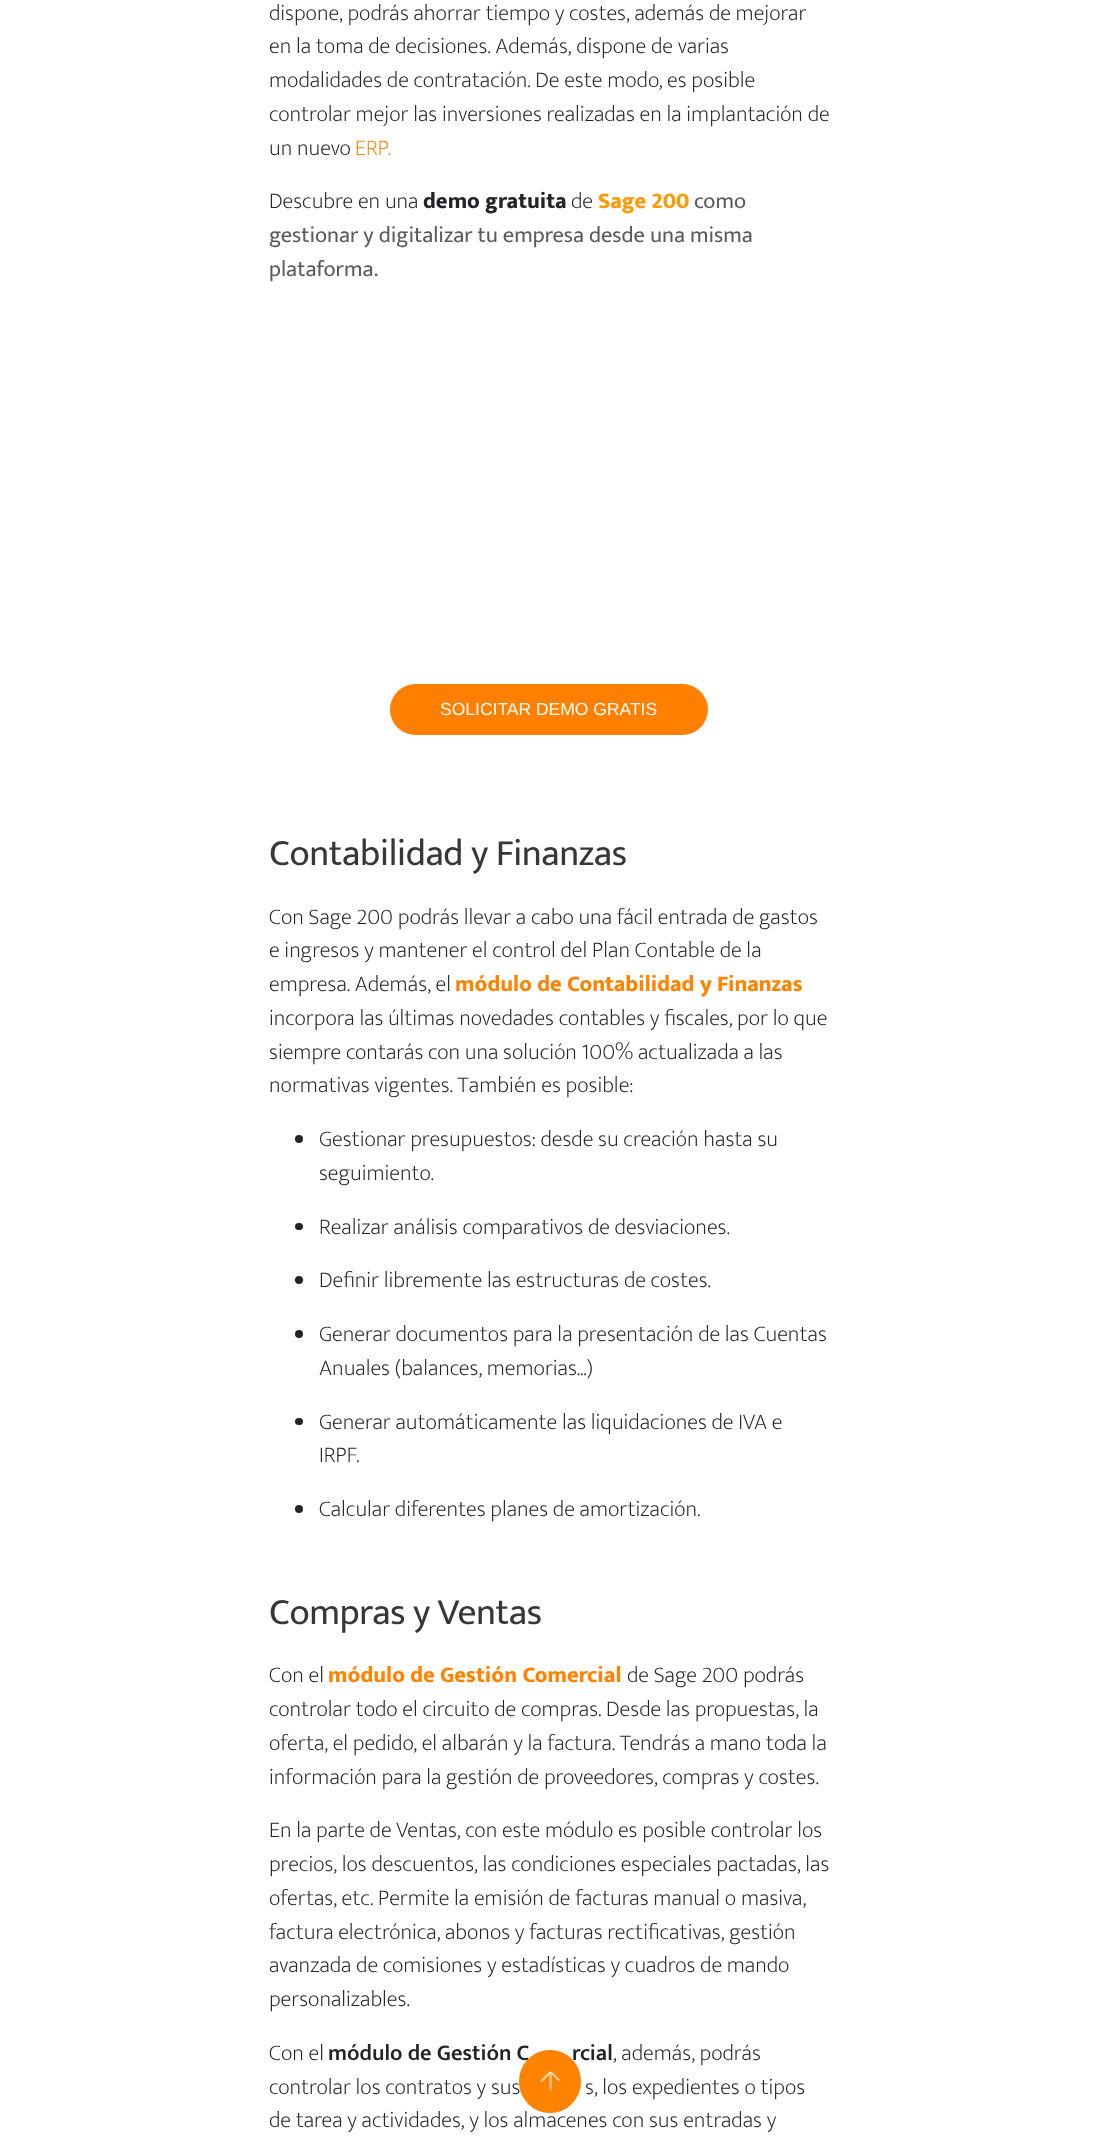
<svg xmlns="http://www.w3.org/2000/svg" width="1100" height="2137">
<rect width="100%" height="100%" fill="#fff"/>
<text x="269" y="20" style="font-family:Mukta;font-size:22.5px;font-weight:200;fill:#212529">dispone, podrás ahorrar tiempo y costes, además de mejorar</text>
<text x="269" y="53" style="font-family:Mukta;font-size:22.5px;font-weight:200;fill:#212529">en la toma de decisiones. Además, dispone de varias</text>
<text x="269" y="87" style="font-family:Mukta;font-size:22.5px;font-weight:200;fill:#212529">modalidades de contratación. De este modo, es posible</text>
<text x="269" y="121" style="font-family:Mukta;font-size:22.5px;font-weight:200;fill:#212529">controlar mejor las inversiones realizadas en la implantación de</text>
<text x="269" y="155" style="font-family:Mukta;font-size:22.5px;font-weight:200;fill:#212529">un nuevo</text>
<text x="355" y="155" style="font-family:Mukta;font-size:22.5px;font-weight:200;fill:#ff8200">ERP.</text>
<text x="269" y="208" style="font-family:Mukta;font-size:22.5px;font-weight:200;fill:#212529">Descubre en una</text>
<text x="423" y="208" style="font-family:Mukta;font-size:22.5px;font-weight:800;fill:#212529">demo gratuita</text>
<text x="571" y="208" style="font-family:Mukta;font-size:22.5px;font-weight:200;fill:#212529">de</text>
<text x="598" y="208" style="font-family:Mukta;font-size:22.5px;font-weight:800;fill:#ff9902">Sage 200</text>
<text x="694" y="208" style="font-family:Mukta;font-size:22.5px;fill:#5b5b5b">como</text>
<text x="269" y="242" style="font-family:Mukta;font-size:22.5px;fill:#5b5b5b">gestionar y digitalizar tu empresa desde una misma</text>
<text x="269" y="276" style="font-family:Mukta;font-size:22.5px;fill:#5b5b5b">plataforma.</text>
<rect x="390" y="684" width="318" height="51" rx="25.5" fill="#ff8000"/>
<text x="440" y="715" style="font-family:Liberation Sans;font-size:17.5px;fill:#fff">SOLICITAR DEMO GRATIS</text>
<text x="269" y="865" style="font-family:Mukta;font-size:37.5px;letter-spacing:-0.4px;fill:#373737">Contabilidad y Finanzas</text>
<text x="269" y="924" style="font-family:Mukta;font-size:22.5px;font-weight:200;fill:#212529">Con Sage 200 podrás llevar a cabo una fácil entrada de gastos</text>
<text x="269" y="957" style="font-family:Mukta;font-size:22.5px;font-weight:200;fill:#212529">e ingresos y mantener el control del Plan Contable de la</text>
<text x="269" y="991" style="font-family:Mukta;font-size:22.5px;font-weight:200;fill:#212529">empresa. Además, el</text>
<text x="455" y="991" style="font-family:Mukta;font-size:22.5px;font-weight:800;fill:#ff8200">módulo de Contabilidad y Finanzas</text>
<text x="269" y="1025" style="font-family:Mukta;font-size:22.5px;font-weight:200;fill:#212529">incorpora las últimas novedades contables y fiscales, por lo que</text>
<text x="269" y="1059" style="font-family:Mukta;font-size:22.5px;font-weight:200;fill:#212529">siempre contarás con una solución 100% actualizada a las</text>
<text x="269" y="1092" style="font-family:Mukta;font-size:22.5px;font-weight:200;fill:#212529">normativas vigentes. También es posible:</text>
<circle cx="299" cy="1139" r="4" fill="#212529"/>
<text x="319" y="1146" style="font-family:Mukta;font-size:22.5px;font-weight:200;fill:#212529">Gestionar presupuestos: desde su creación hasta su</text>
<text x="319" y="1180" style="font-family:Mukta;font-size:22.5px;font-weight:200;fill:#212529">seguimiento.</text>
<rect x="295" y="1223" width="8" height="7" rx="3.5" fill="#212529"/>
<text x="319" y="1234" style="font-family:Mukta;font-size:22.5px;font-weight:200;fill:#212529">Realizar análisis comparativos de desviaciones.</text>
<circle cx="299" cy="1280" r="4" fill="#212529"/>
<text x="319" y="1287" style="font-family:Mukta;font-size:22.5px;font-weight:200;fill:#212529">Definir libremente las estructuras de costes.</text>
<circle cx="299" cy="1334" r="4" fill="#212529"/>
<text x="319" y="1341" style="font-family:Mukta;font-size:22.5px;font-weight:200;fill:#212529">Generar documentos para la presentación de las Cuentas</text>
<text x="319" y="1375" style="font-family:Mukta;font-size:22.5px;font-weight:200;fill:#212529">Anuales (balances, memorias...)</text>
<rect x="295" y="1418" width="8" height="7" rx="3.5" fill="#212529"/>
<text x="319" y="1429" style="font-family:Mukta;font-size:22.5px;font-weight:200;fill:#212529">Generar automáticamente las liquidaciones de IVA e</text>
<text x="319" y="1462" style="font-family:Mukta;font-size:22.5px;font-weight:200;fill:#212529">IRPF.</text>
<circle cx="299" cy="1509" r="4" fill="#212529"/>
<text x="319" y="1516" style="font-family:Mukta;font-size:22.5px;font-weight:200;fill:#212529">Calcular diferentes planes de amortización.</text>
<text x="269" y="1624" style="font-family:Mukta;font-size:37.5px;letter-spacing:-0.4px;fill:#373737">Compras y Ventas</text>
<text x="269" y="1682" style="font-family:Mukta;font-size:22.5px;font-weight:200;fill:#212529">Con el</text>
<text x="328" y="1682" style="font-family:Mukta;font-size:22.5px;font-weight:800;fill:#ff8200">módulo de Gestión Comercial</text>
<text x="627" y="1682" style="font-family:Mukta;font-size:22.5px;font-weight:200;fill:#212529">de Sage 200 podrás</text>
<text x="269" y="1716" style="font-family:Mukta;font-size:22.5px;font-weight:200;fill:#212529">controlar todo el circuito de compras. Desde las propuestas, la</text>
<text x="269" y="1750" style="font-family:Mukta;font-size:22.5px;font-weight:200;fill:#212529">oferta, el pedido, el albarán y la factura. Tendrás a mano toda la</text>
<text x="269" y="1784" style="font-family:Mukta;font-size:22.5px;font-weight:200;fill:#212529">información para la gestión de proveedores, compras y costes.</text>
<text x="269" y="1837" style="font-family:Mukta;font-size:22.5px;font-weight:200;fill:#212529">En la parte de Ventas, con este módulo es posible controlar los</text>
<text x="269" y="1871" style="font-family:Mukta;font-size:22.5px;font-weight:200;fill:#212529">precios, los descuentos, las condiciones especiales pactadas, las</text>
<text x="269" y="1905" style="font-family:Mukta;font-size:22.5px;font-weight:200;fill:#212529">ofertas, etc. Permite la emisión de facturas manual o masiva,</text>
<text x="269" y="1939" style="font-family:Mukta;font-size:22.5px;font-weight:200;fill:#212529">factura electrónica, abonos y facturas rectificativas, gestión</text>
<text x="269" y="1972" style="font-family:Mukta;font-size:22.5px;font-weight:200;fill:#212529">avanzada de comisiones y estadísticas y cuadros de mando</text>
<text x="269" y="2006" style="font-family:Mukta;font-size:22.5px;font-weight:200;fill:#212529">personalizables.</text>
<text x="269" y="2060" style="font-family:Mukta;font-size:22.5px;font-weight:200;fill:#212529">Con el</text>
<text x="328" y="2060" style="font-family:Mukta;font-size:22.5px;font-weight:600;fill:#212529">módulo de Gestión C</text>
<text x="572" y="2060" style="font-family:Mukta;font-size:22.5px;font-weight:600;fill:#212529">rcial</text>
<text x="613" y="2060" style="font-family:Mukta;font-size:22.5px;font-weight:200;fill:#212529">, además, podrás</text>
<text x="269" y="2094" style="font-family:Mukta;font-size:22.5px;font-weight:200;fill:#212529">controlar los contratos y sus</text>
<text x="585" y="2094" style="font-family:Mukta;font-size:22.5px;font-weight:200;fill:#212529">s, los expedientes o tipos</text>
<text x="269" y="2127" style="font-family:Mukta;font-size:22.5px;font-weight:200;fill:#212529">de tarea y actividades, y los almacenes con sus entradas y</text>
<rect x="519" y="2050" width="62" height="63" rx="31" fill="#ff8200"/>
<image x="540" y="2071" width="21" height="20" href="media/1.png"/>
</svg>
